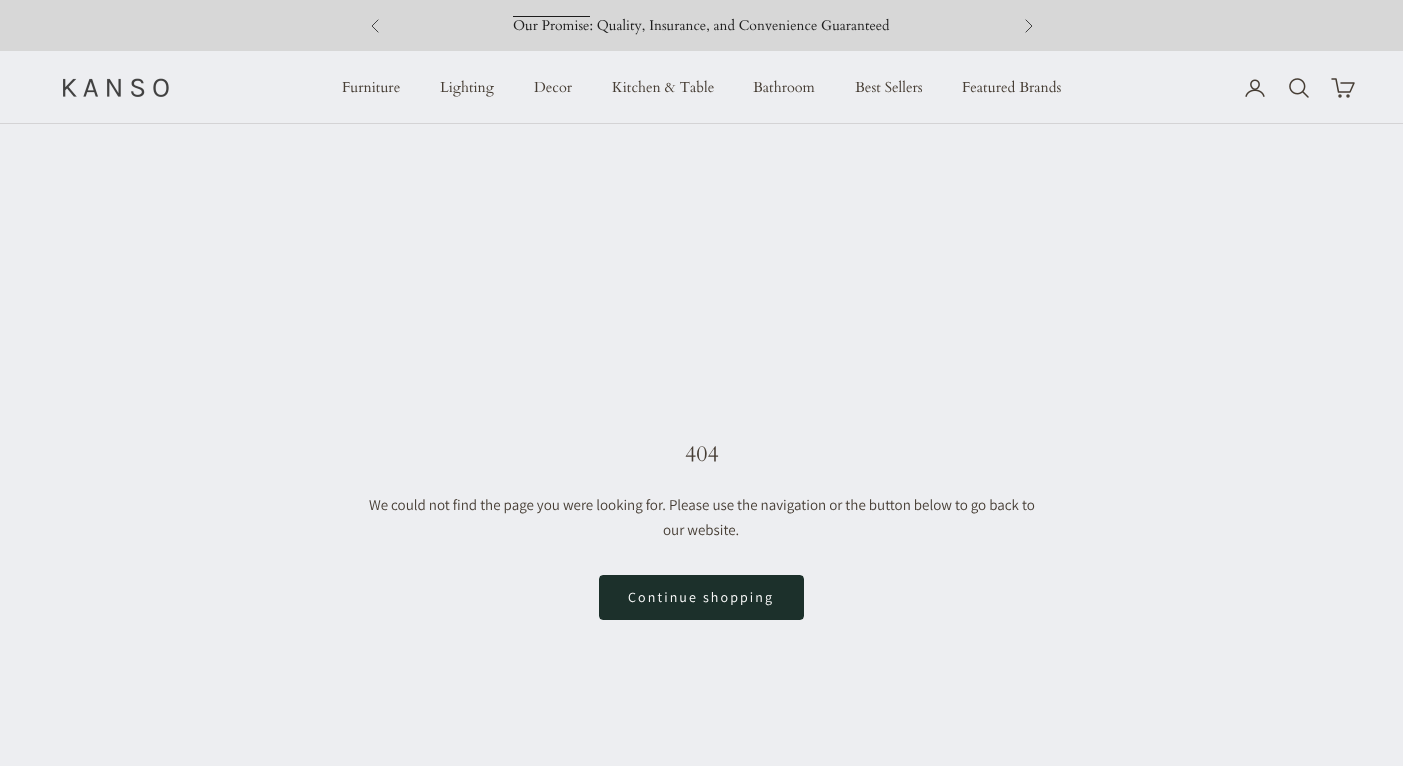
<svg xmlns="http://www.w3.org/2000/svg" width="1403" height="766">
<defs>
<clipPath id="clip1"><rect x="599" y="575" width="205" height="45" rx="4"/></clipPath>
</defs>
<rect width="100%" height="100%" fill="#edeef1"/>
<rect width="1403" height="51" fill="#d7d7d7"/>
<path d="M378 20l-6 6l6 6" fill="none" stroke="#1c1c1c" stroke-width="0.8" stroke-linecap="square"/>
<text x="513" y="30" style="font-family:Cardo;font-size:14px;fill:#1c1c1c">Our Promise: Quality, Insurance, and Convenience Guaranteed</text>
<rect x="513" y="16" width="77" height="1" fill="#1c1c1c"/>
<path d="M1026 32l6-6l-6-6" fill="none" stroke="#1c1c1c" stroke-width="0.8" stroke-linecap="square"/>
<rect y="123" width="1403" height="1" fill="#d4d3d5"/>
<image x="63" y="78" width="106" height="19" href="media/1.png"/>
<text x="342" y="92" style="font-family:Cardo;font-size:14.5px;fill:#463d34">Furniture</text>
<text x="440" y="92" style="font-family:Cardo;font-size:14.5px;fill:#463d34">Lighting</text>
<text x="534" y="92" style="font-family:Cardo;font-size:14.5px;fill:#463d34">Decor</text>
<text x="612" y="92" style="font-family:Cardo;font-size:14.5px;fill:#463d34">Kitchen &amp; Table</text>
<text x="753" y="92" style="font-family:Cardo;font-size:14.5px;fill:#463d34">Bathroom</text>
<text x="855" y="92" style="font-family:Cardo;font-size:14.5px;fill:#463d34">Best Sellers</text>
<text x="962" y="92" style="font-family:Cardo;font-size:14.5px;fill:#463d34">Featured Brands</text>
<image x="1245" y="79" width="20" height="18" href="media/2.png"/>
<image x="1289" y="78" width="20" height="20" href="media/3.png"/>
<path d="M1341 83h13l-4 9h-11.5l-2.5-13h-4" fill="none" stroke="#463d34" stroke-width="1.5" stroke-linecap="round" stroke-linejoin="round"/>
<circle cx="1340" cy="96" r="1" fill="none" stroke="#463d34" stroke-width="1.5"/>
<circle cx="1348" cy="96" r="1" fill="none" stroke="#463d34" stroke-width="1.5"/>
<text x="685" y="461" style="font-family:Cardo;font-size:22px;fill:#463d34">404</text>
<text x="369" y="510" style="font-family:Assistant;font-size:15px;fill:#463d34">We could not find the page you were looking for. Please use the navigation or the button below to go back to</text>
<text x="663" y="535" style="font-family:Assistant;font-size:15px;fill:#463d34">our website.</text>
<g clip-path="url(#clip1)">
<rect x="600" y="576" width="203" height="43" fill="#1c302b"/>
</g>
<rect x="599.5" y="575.5" width="204" height="44" rx="3.5" fill="none" stroke="#1c302b"/>
<text x="628" y="602" style="font-family:Assistant;font-size:14px;letter-spacing:2.1px;fill:#fff">Continue shopping</text>
</svg>
